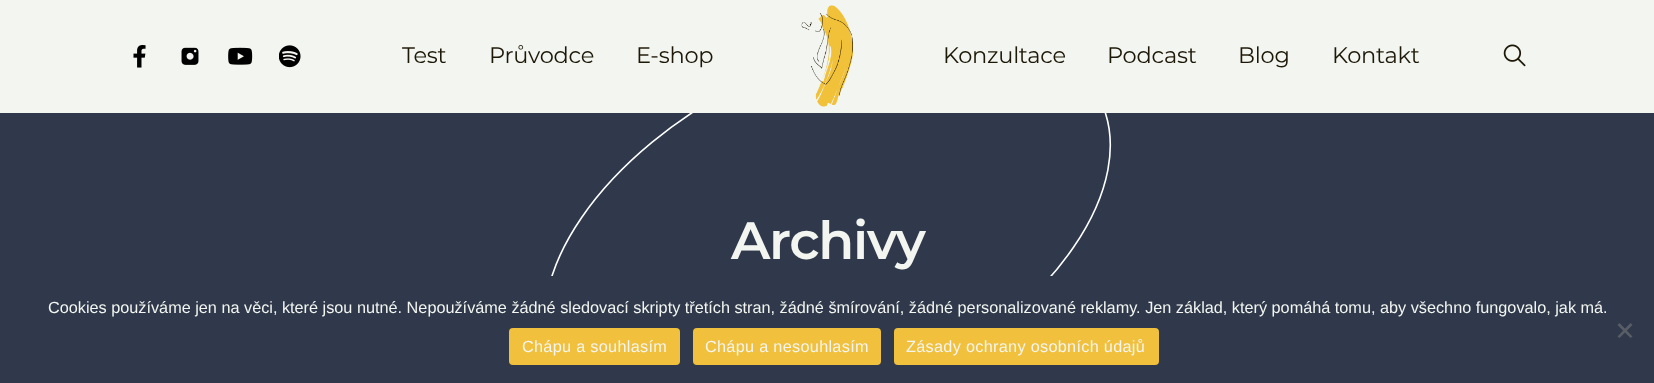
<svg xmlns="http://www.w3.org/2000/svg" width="1654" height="383">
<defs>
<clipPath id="clip1"><rect x="384" y="113" width="887" height="240"/></clipPath>
</defs>
<rect width="100%" height="100%" fill="#f2f5f0"/>
<image x="133" y="45" width="13" height="23" href="media/1.png"/>
<image x="181" y="47" width="18" height="18" href="media/2.png"/>
<image x="228" y="47" width="25" height="18" href="media/3.png"/>
<image x="279" y="45" width="22" height="23" href="media/4.png"/>
<text x="402" y="63" style="font-family:Montserrat;font-size:22.5px;letter-spacing:-0.25px;fill:#1e1808">Test</text>
<text x="489" y="63" style="font-family:Montserrat;font-size:22.5px;letter-spacing:-0.25px;fill:#1e1808">Průvodce</text>
<text x="636" y="63" style="font-family:Montserrat;font-size:22.5px;letter-spacing:-0.25px;fill:#1e1808">E-shop</text>
<image x="801" y="5" width="53" height="102" href="media/5.png"/>
<text x="943" y="63" style="font-family:Montserrat;font-size:22.5px;letter-spacing:-0.25px;fill:#1e1808">Konzultace</text>
<text x="1107" y="63" style="font-family:Montserrat;font-size:22.5px;letter-spacing:-0.25px;fill:#1e1808">Podcast</text>
<text x="1238" y="63" style="font-family:Montserrat;font-size:22.5px;letter-spacing:-0.25px;fill:#1e1808">Blog</text>
<text x="1332" y="63" style="font-family:Montserrat;font-size:22.5px;letter-spacing:-0.25px;fill:#1e1808">Kontakt</text>
<image x="1503" y="44" width="23" height="23" href="media/6.png"/>
<rect y="113" width="1654" height="163" fill="#2f394b"/>
<g clip-path="url(#clip1)">
<path d="M752 78.5c-150.5 73.5-238.5 202-197 287c41.5 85.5 197.5 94.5 348 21c150.5-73.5 238.5-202 197-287c-41.5-85.5-197.5-94.5-348-21z" fill="none" stroke="#fff" stroke-width="1.6"/>
</g>
<text x="731" y="259" style="font-family:Montserrat;font-size:52.5px;font-weight:600;letter-spacing:-1.25px;fill:#f2f5f0">Archivy</text>
<rect y="276" width="1654" height="107" fill="#2f394b"/>
<text x="48" y="313" style="font-family:Liberation Sans;font-size:16.25px;fill:#f2f5f0">Cookies používáme jen na věci, které jsou nutné. Nepoužíváme žádné sledovací skripty třetích stran, žádné šmírování, žádné personalizované reklamy. Jen základ, který pomáhá tomu, aby všechno fungovalo, jak má.</text>
<path d="M1630.5 323l2 2l-13 13l-2-1.5z" fill="#585d66"/>
<path d="M1617.5 325l2-2l13 13.5l-2 1.5z" fill="#585d66"/>
<rect x="509" y="328" width="171" height="37" rx="4" fill="#f1c03d"/>
<text x="522" y="352" style="font-family:Liberation Sans;font-size:16.25px;letter-spacing:0.3px;fill:#f2f5f0">Chápu a souhlasím</text>
<rect x="693" y="328" width="188" height="37" rx="4" fill="#f1c03d"/>
<text x="705" y="352" style="font-family:Liberation Sans;font-size:16.25px;letter-spacing:0.3px;fill:#f2f5f0">Chápu a nesouhlasím</text>
<rect x="894" y="328" width="265" height="37" rx="4" fill="#f1c03d"/>
<text x="906" y="352" style="font-family:Liberation Sans;font-size:16.25px;letter-spacing:0.3px;fill:#f2f5f0">Zásady ochrany osobních údajů</text>
</svg>
